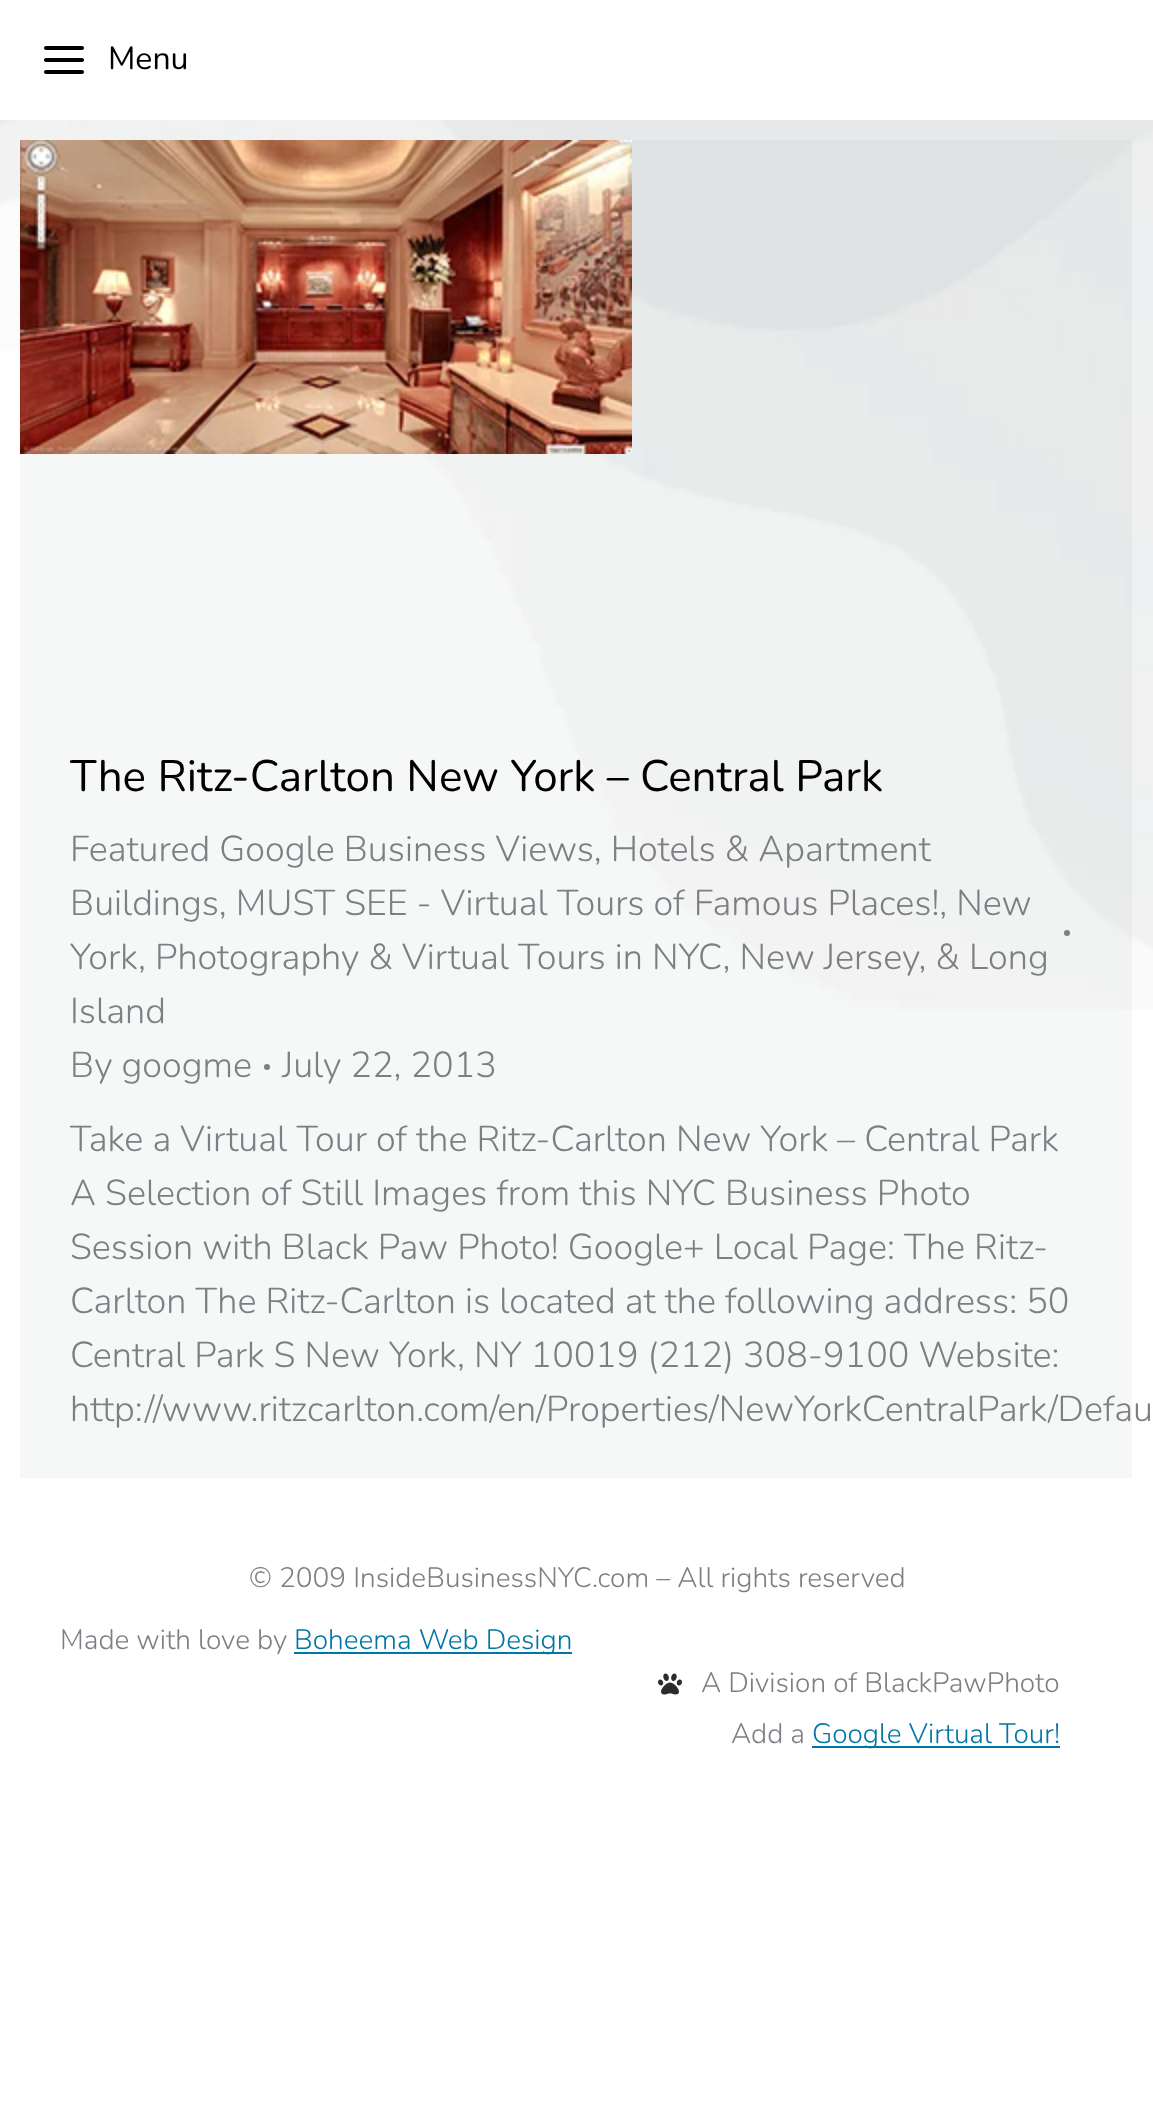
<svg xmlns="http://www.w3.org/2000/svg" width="1153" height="2120">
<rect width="100%" height="100%" fill="#fff"/>
<image x="0" y="120" width="1153" height="889" href="media/1.png"/>
<image x="44" y="46" width="40" height="28" href="media/2.png"/>
<text x="108" y="69" style="font-family:Nunito;font-size:32px;fill:#000">Menu</text>
<rect x="20" y="140" width="1112" height="1338" fill="#a9aeb31a"/>
<image x="20" y="140" width="612" height="314" href="media/3.png"/>
<text x="70" y="791" style="font-family:Nunito;font-size:44px;fill:#000">The Ritz-Carlton New York – Central Park</text>
<text x="70" y="861" style="font-family:Nunito;font-size:36px;font-weight:300;fill:#7c7f83">Featured Google Business Views, Hotels &amp; Apartment</text>
<text x="70" y="915" style="font-family:Nunito;font-size:36px;font-weight:300;fill:#7c7f83">Buildings, MUST SEE - Virtual Tours of Famous Places!, New</text>
<circle cx="1067" cy="933" r="3" fill="#7c7f83"/>
<text x="70" y="969" style="font-family:Nunito;font-size:36px;font-weight:300;fill:#7c7f83">York</text>
<text x="138" y="969" style="font-family:Nunito;font-size:36px;font-weight:300;fill:#7c7f83">, Photography &amp; Virtual Tours in NYC, New Jersey, &amp; Long</text>
<text x="70" y="1023" style="font-family:Nunito;font-size:36px;font-weight:300;fill:#7c7f83">Island</text>
<text x="70" y="1077" style="font-family:Nunito;font-size:36px;font-weight:300;fill:#7c7f83">By googme</text>
<circle cx="267" cy="1067" r="3" fill="#7c7f83"/>
<text x="282" y="1077" style="font-family:Nunito;font-size:36px;font-weight:300;fill:#7c7f83">July 22, 2013</text>
<text x="70" y="1151" style="font-family:Nunito;font-size:36px;font-weight:300;fill:#7c7f83">Take a Virtual Tour of the Ritz-Carlton New York – Central Park</text>
<text x="70" y="1205" style="font-family:Nunito;font-size:36px;font-weight:300;fill:#7c7f83">A Selection of Still Images from this NYC Business Photo</text>
<text x="70" y="1259" style="font-family:Nunito;font-size:36px;font-weight:300;fill:#7c7f83">Session with Black Paw Photo! Google+ Local Page: The Ritz-</text>
<text x="70" y="1313" style="font-family:Nunito;font-size:36px;font-weight:300;fill:#7c7f83">Carlton The Ritz-Carlton is located at the following address: 50</text>
<text x="70" y="1367" style="font-family:Nunito;font-size:36px;font-weight:300;fill:#7c7f83">Central Park S New York, NY 10019 (212) 308-9100 Website:</text>
<text x="70" y="1421" style="font-family:Nunito;font-size:36px;font-weight:300;fill:#7c7f83">http://www.ritzcarlton.com/en/Properties/NewYorkCentralPark/Defau</text>
<text x="249" y="1587" style="font-family:Nunito;font-size:28px;font-weight:300;fill:#7c7f83">© 2009 InsideBusinessNYC.com – All rights reserved</text>
<text x="60" y="1649" style="font-family:Nunito;font-size:28px;font-weight:300;fill:#7c7f83">Made with love by</text>
<rect x="294" y="1652" width="278" height="2" fill="#0077a3"/>
<text x="294" y="1649" style="font-family:Nunito;font-size:28px;font-weight:300;fill:#0077a3">Boheema Web Design</text>
<image x="658" y="1673" width="24" height="22" href="media/4.png"/>
<text x="701" y="1692" style="font-family:Nunito;font-size:28px;font-weight:300;fill:#7c7f83">A Division of BlackPawPhoto</text>
<text x="731" y="1743" style="font-family:Nunito;font-size:28px;font-weight:300;fill:#7c7f83">Add a</text>
<rect x="812" y="1746" width="248" height="2" fill="#0077a3"/>
<text x="812" y="1743" style="font-family:Nunito;font-size:28px;font-weight:300;fill:#0077a3">Google Virtual Tour!</text>
</svg>
